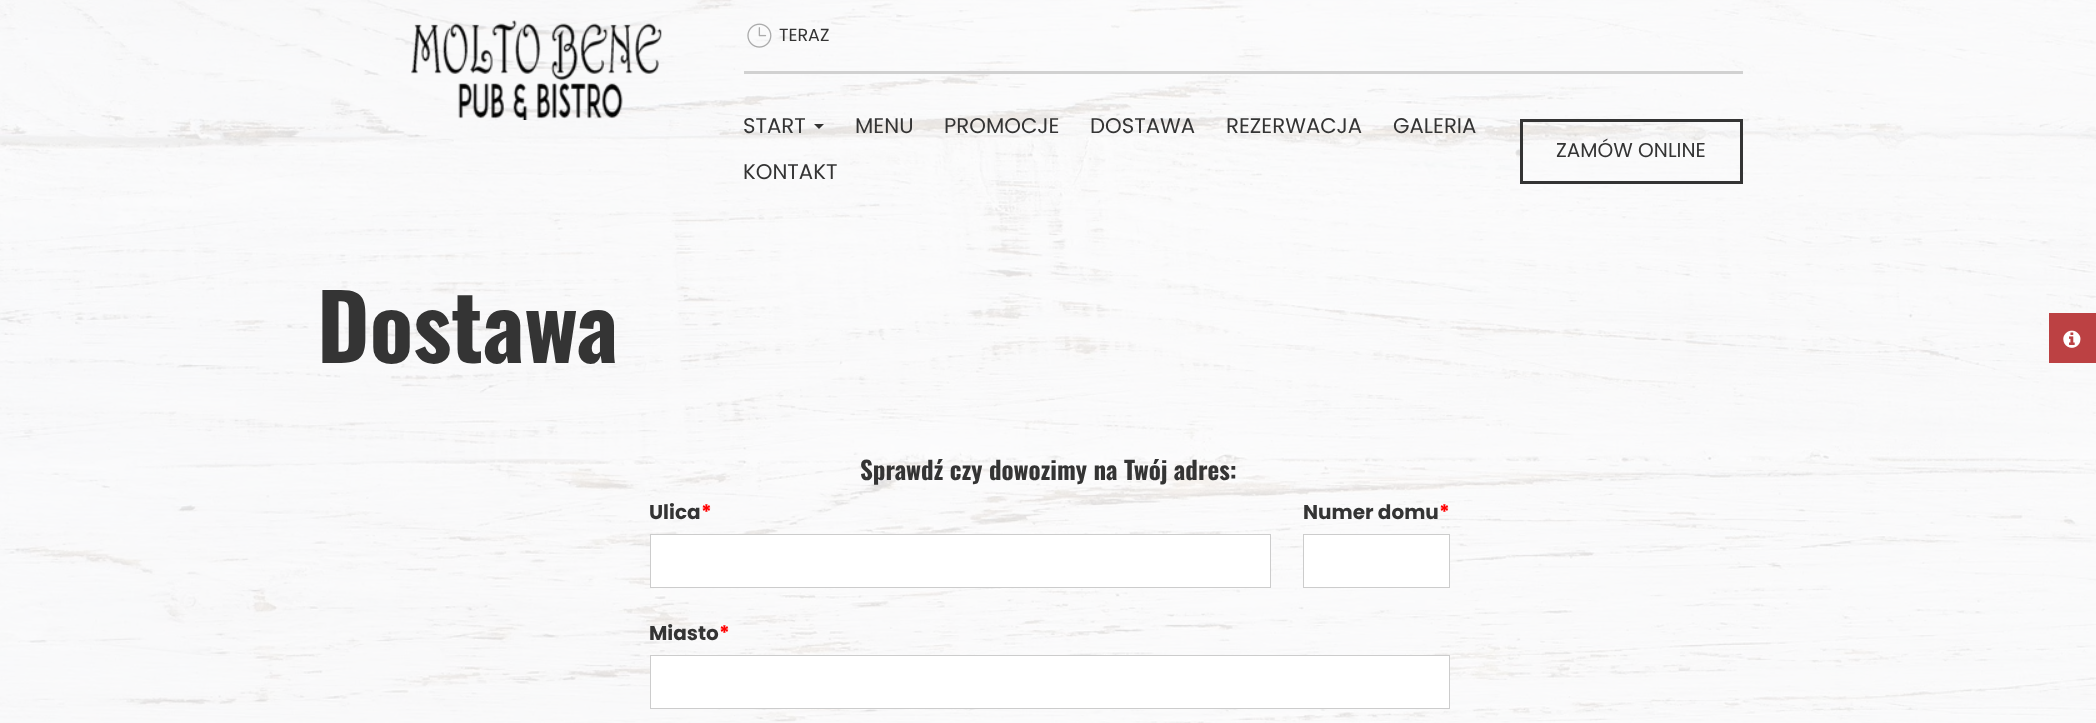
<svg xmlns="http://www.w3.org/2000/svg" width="2096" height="723">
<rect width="100%" height="100%" fill="#fff"/>
<image x="0" y="0" width="2096" height="723" href="media/1.png"/>
<image x="411" y="20" width="251" height="100" href="media/2.png"/>
<rect x="744" y="71" width="999" height="3" fill="#d1d1d1"/>
<image x="747" y="23" width="25" height="25" href="media/3.png"/>
<text x="779" y="41" style="font-family:Poppins;font-size:17.5px;fill:#343434">TERAZ</text>
<text x="743" y="133" style="font-family:Poppins;font-size:21.25px;fill:#343434">START</text>
<path d="M814 124h10l-5 5z" fill="#343434"/>
<text x="855" y="133" style="font-family:Poppins;font-size:21.25px;fill:#343434">MENU</text>
<text x="944" y="133" style="font-family:Poppins;font-size:21.25px;fill:#343434">PROMOCJE</text>
<text x="1090" y="133" style="font-family:Poppins;font-size:21.25px;fill:#343434">DOSTAWA</text>
<text x="1226" y="133" style="font-family:Poppins;font-size:21.25px;fill:#343434">REZERWACJA</text>
<text x="1393" y="133" style="font-family:Poppins;font-size:21.25px;fill:#343434">GALERIA</text>
<text x="743" y="179" style="font-family:Poppins;font-size:21.25px;fill:#343434">KONTAKT</text>
<rect x="1521.5" y="120.5" width="220" height="62" fill="none" stroke="#343434" stroke-width="3"/>
<text x="1556" y="157" style="font-family:Poppins;font-size:20px;fill:#343434">ZAMÓW ONLINE</text>
<text x="317" y="363" style="font-family:Oswald;font-size:90px;font-weight:bold;fill:#343434">Dostawa</text>
<text x="860" y="480" style="font-family:Oswald;font-size:25px;font-weight:bold;fill:#343434">Sprawdź czy dowozimy na Twój adres:</text>
<text x="649" y="519" style="font-family:Poppins;font-size:20px;font-weight:bold;fill:#343434">Ulica</text>
<text x="701" y="519" style="font-family:Poppins;font-size:20px;font-weight:bold;fill:#f00">*</text>
<rect x="650.5" y="534.5" width="620" height="53" fill="#fff" stroke="#ccc"/>
<text x="1303" y="519" style="font-family:Poppins;font-size:20px;font-weight:bold;fill:#343434">Numer domu</text>
<text x="1439" y="519" style="font-family:Poppins;font-size:20px;font-weight:bold;fill:#f00">*</text>
<rect x="1303.5" y="534.5" width="146" height="53" fill="#fff" stroke="#ccc"/>
<text x="649" y="640" style="font-family:Poppins;font-size:20px;font-weight:bold;fill:#343434">Miasto</text>
<text x="719" y="640" style="font-family:Poppins;font-size:20px;font-weight:bold;fill:#f00">*</text>
<rect x="650.5" y="655.5" width="799" height="53" fill="#fff" stroke="#ccc"/>
<rect x="2049" y="313" width="47" height="50" fill="#bc4143"/>
<image x="2063" y="330" width="18" height="18" href="media/4.png"/>
</svg>
